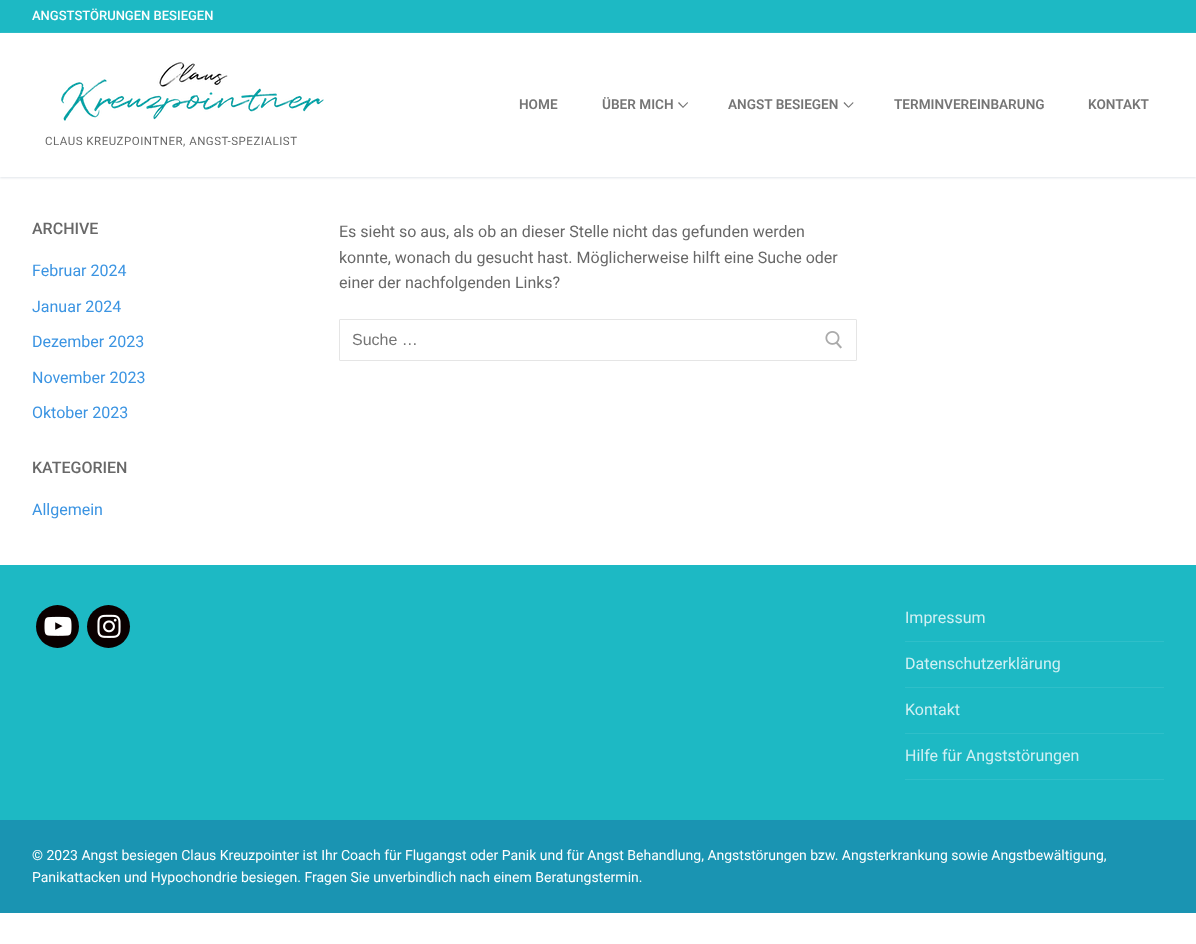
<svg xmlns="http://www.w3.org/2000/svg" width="1196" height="944">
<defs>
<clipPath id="clip1"><path d="M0 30h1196v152h-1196zm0 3h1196v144h-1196z" clip-rule="evenodd"/></clipPath>
</defs>
<rect width="100%" height="100%" fill="#fff"/>
<rect width="1196" height="33" fill="#1db9c4"/>
<text x="32" y="20" style="font-family:Roboto;font-size:13px;font-weight:500;fill:#fdfefe">ANGSTSTÖRUNGEN BESIEGEN</text>
<g clip-path="url(#clip1)">
<rect y="34" width="1196" height="144" fill="#e1e5ea" filter="blur(1px)"/>
</g>
<text x="519" y="109" style="font-family:Roboto;font-size:13.6px;font-weight:600;fill:#757575">HOME</text>
<text x="602" y="109" style="font-family:Roboto;font-size:13.6px;font-weight:600;fill:#757575">ÜBER MICH</text>
<path d="M683 108l-5-5l1-1l4 4.5zm5-5l-5 5v-1.5l4.5-4.5z" fill="#737373"/>
<text x="728" y="109" style="font-family:Roboto;font-size:13.6px;font-weight:600;fill:#757575">ANGST BESIEGEN</text>
<path d="M848.5 108l-5-5l1-1l4 4.5z" fill="#737373"/>
<path d="M853.5 103l-5 5v-1.5l4.5-4.5z" fill="#737373"/>
<text x="894" y="109" style="font-family:Roboto;font-size:13.6px;font-weight:600;fill:#757575">TERMINVEREINBARUNG</text>
<text x="1088" y="109" style="font-family:Roboto;font-size:13.6px;font-weight:600;fill:#757575">KONTAKT</text>
<image x="61" y="62" width="263" height="59" href="media/1.png"/>
<text x="45" y="145" style="font-family:Roboto;font-size:11.5px;letter-spacing:0.5px;fill:#686868">CLAUS KREUZPOINTNER, ANGST-SPEZIALIST</text>
<text x="32" y="234" style="font-family:Roboto;font-size:16px;font-weight:500;fill:#686868">ARCHIVE</text>
<text x="32" y="276" style="font-family:Roboto;font-size:16px;fill:#3b94e2">Februar 2024</text>
<text x="32" y="312" style="font-family:Roboto;font-size:16px;fill:#3b94e2">Januar 2024</text>
<text x="32" y="347" style="font-family:Roboto;font-size:16px;fill:#3b94e2">Dezember 2023</text>
<text x="32" y="383" style="font-family:Roboto;font-size:16px;fill:#3b94e2">November 2023</text>
<text x="32" y="418" style="font-family:Roboto;font-size:16px;fill:#3b94e2">Oktober 2023</text>
<text x="32" y="473" style="font-family:Roboto;font-size:16px;font-weight:500;fill:#686868">KATEGORIEN</text>
<text x="32" y="515" style="font-family:Roboto;font-size:16px;fill:#3b94e2">Allgemein</text>
<text x="339" y="237" style="font-family:Roboto;font-size:16px;fill:#686868">Es sieht so aus, als ob an dieser Stelle nicht das gefunden werden</text>
<text x="339" y="263" style="font-family:Roboto;font-size:16px;fill:#686868">konnte, wonach du gesucht hast. Möglicherweise hilft eine Suche oder</text>
<text x="339" y="288" style="font-family:Roboto;font-size:16px;fill:#686868">einer der nachfolgenden Links?</text>
<rect x="339.5" y="319.5" width="517" height="41" rx="0.5" fill="none" stroke="#e5e5e5"/>
<text x="352" y="345" style="font-family:Liberation Sans;font-size:16px;fill:#757575">Suche …</text>
<image x="825" y="331" width="17" height="18" href="media/2.png"/>
<rect y="565" width="1196" height="255" fill="#1db9c4"/>
<circle cx="57.5" cy="626.5" r="21.5" fill="#0a0000"/>
<image x="44" y="616" width="28" height="20" href="media/3.png"/>
<circle cx="108.5" cy="626.5" r="21.5" fill="#0a0000"/>
<image x="97" y="614" width="24" height="24" href="media/4.png"/>
<rect x="905" y="641" width="259" height="1" fill="#2fbfc9"/>
<text x="905" y="623" style="font-family:Roboto;font-size:16px;fill:#d0f0f3">Impressum</text>
<rect x="905" y="687" width="259" height="1" fill="#2fbfc9"/>
<text x="905" y="669" style="font-family:Roboto;font-size:16px;fill:#d0f0f3">Datenschutzerklärung</text>
<rect x="905" y="733" width="259" height="1" fill="#2fbfc9"/>
<text x="905" y="715" style="font-family:Roboto;font-size:16px;fill:#d0f0f3">Kontakt</text>
<rect x="905" y="779" width="259" height="1" fill="#2fbfc9"/>
<text x="905" y="761" style="font-family:Roboto;font-size:16px;fill:#d0f0f3">Hilfe für Angststörungen</text>
<rect y="820" width="1196" height="93" fill="#1a94b2"/>
<text x="32" y="860" style="font-family:Roboto;font-size:14px;fill:#fdfefe">© 2023 Angst besiegen Claus Kreuzpointer ist Ihr Coach für Flugangst oder Panik und für Angst Behandlung, Angststörungen bzw. Angsterkrankung sowie Angstbewältigung,</text>
<text x="32" y="882" style="font-family:Roboto;font-size:14px;fill:#fdfefe">Panikattacken und Hypochondrie besiegen. Fragen Sie unverbindlich nach einem Beratungstermin.</text>
</svg>
